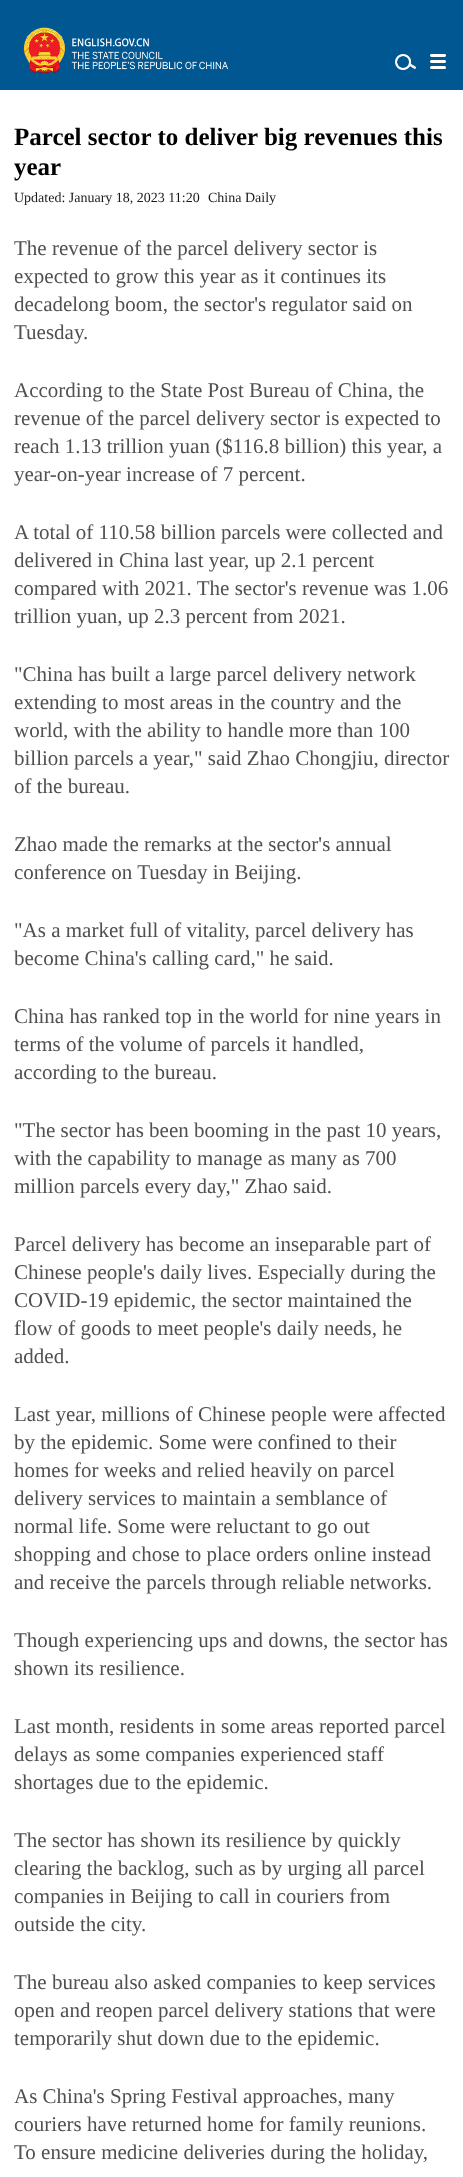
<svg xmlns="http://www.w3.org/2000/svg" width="463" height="2177">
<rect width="100%" height="100%" fill="#fff"/>
<rect width="463" height="90" fill="#005791"/>
<image x="23" y="27" width="205" height="46" href="media/1.png"/>
<image x="395" y="54" width="21" height="16" href="media/2.png"/>
<image x="430" y="54" width="16" height="15" href="media/3.png"/>
<text x="14" y="145" style="font-family:Liberation Serif;font-size:25px;font-weight:bold;fill:#000">Parcel sector to deliver big revenues this</text>
<text x="14" y="175" style="font-family:Liberation Serif;font-size:25px;font-weight:bold;fill:#000">year</text>
<text x="14" y="202" style="font-family:Liberation Serif;font-size:14px;fill:#191919">Updated: January 18, 2023 11:20</text>
<text x="208" y="202" style="font-family:Liberation Serif;font-size:14px;fill:#191919">China Daily</text>
<text x="14" y="255" style="font-family:Liberation Serif;font-size:21px;fill:#505050">The revenue of the parcel delivery sector is</text>
<text x="14" y="283" style="font-family:Liberation Serif;font-size:21px;fill:#505050">expected to grow this year as it continues its</text>
<text x="14" y="311" style="font-family:Liberation Serif;font-size:21px;fill:#505050">decadelong boom, the sector's regulator said on</text>
<text x="14" y="339" style="font-family:Liberation Serif;font-size:21px;fill:#505050">Tuesday.</text>
<text x="14" y="397" style="font-family:Liberation Serif;font-size:21px;fill:#505050">According to the State Post Bureau of China, the</text>
<text x="14" y="425" style="font-family:Liberation Serif;font-size:21px;fill:#505050">revenue of the parcel delivery sector is expected to</text>
<text x="14" y="453" style="font-family:Liberation Serif;font-size:21px;fill:#505050">reach 1.13 trillion yuan ($116.8 billion) this year, a</text>
<text x="14" y="481" style="font-family:Liberation Serif;font-size:21px;fill:#505050">year-on-year increase of 7 percent.</text>
<text x="14" y="539" style="font-family:Liberation Serif;font-size:21px;fill:#505050">A total of 110.58 billion parcels were collected and</text>
<text x="14" y="567" style="font-family:Liberation Serif;font-size:21px;fill:#505050">delivered in China last year, up 2.1 percent</text>
<text x="14" y="595" style="font-family:Liberation Serif;font-size:21px;fill:#505050">compared with 2021. The sector's revenue was 1.06</text>
<text x="14" y="623" style="font-family:Liberation Serif;font-size:21px;fill:#505050">trillion yuan, up 2.3 percent from 2021.</text>
<text x="14" y="681" style="font-family:Liberation Serif;font-size:21px;fill:#505050">"China has built a large parcel delivery network</text>
<text x="14" y="709" style="font-family:Liberation Serif;font-size:21px;fill:#505050">extending to most areas in the country and the</text>
<text x="14" y="737" style="font-family:Liberation Serif;font-size:21px;fill:#505050">world, with the ability to handle more than 100</text>
<text x="14" y="765" style="font-family:Liberation Serif;font-size:21px;fill:#505050">billion parcels a year," said Zhao Chongjiu, director</text>
<text x="14" y="793" style="font-family:Liberation Serif;font-size:21px;fill:#505050">of the bureau.</text>
<text x="14" y="851" style="font-family:Liberation Serif;font-size:21px;fill:#505050">Zhao made the remarks at the sector's annual</text>
<text x="14" y="879" style="font-family:Liberation Serif;font-size:21px;fill:#505050">conference on Tuesday in Beijing.</text>
<text x="14" y="937" style="font-family:Liberation Serif;font-size:21px;fill:#505050">"As a market full of vitality, parcel delivery has</text>
<text x="14" y="965" style="font-family:Liberation Serif;font-size:21px;fill:#505050">become China's calling card," he said.</text>
<text x="14" y="1023" style="font-family:Liberation Serif;font-size:21px;fill:#505050">China has ranked top in the world for nine years in</text>
<text x="14" y="1051" style="font-family:Liberation Serif;font-size:21px;fill:#505050">terms of the volume of parcels it handled,</text>
<text x="14" y="1079" style="font-family:Liberation Serif;font-size:21px;fill:#505050">according to the bureau.</text>
<text x="14" y="1137" style="font-family:Liberation Serif;font-size:21px;fill:#505050">"The sector has been booming in the past 10 years,</text>
<text x="14" y="1165" style="font-family:Liberation Serif;font-size:21px;fill:#505050">with the capability to manage as many as 700</text>
<text x="14" y="1193" style="font-family:Liberation Serif;font-size:21px;fill:#505050">million parcels every day," Zhao said.</text>
<text x="14" y="1251" style="font-family:Liberation Serif;font-size:21px;fill:#505050">Parcel delivery has become an inseparable part of</text>
<text x="14" y="1279" style="font-family:Liberation Serif;font-size:21px;fill:#505050">Chinese people's daily lives. Especially during the</text>
<text x="14" y="1307" style="font-family:Liberation Serif;font-size:21px;fill:#505050">COVID-19 epidemic, the sector maintained the</text>
<text x="14" y="1335" style="font-family:Liberation Serif;font-size:21px;fill:#505050">flow of goods to meet people's daily needs, he</text>
<text x="14" y="1363" style="font-family:Liberation Serif;font-size:21px;fill:#505050">added.</text>
<text x="14" y="1421" style="font-family:Liberation Serif;font-size:21px;fill:#505050">Last year, millions of Chinese people were affected</text>
<text x="14" y="1449" style="font-family:Liberation Serif;font-size:21px;fill:#505050">by the epidemic. Some were confined to their</text>
<text x="14" y="1477" style="font-family:Liberation Serif;font-size:21px;fill:#505050">homes for weeks and relied heavily on parcel</text>
<text x="14" y="1505" style="font-family:Liberation Serif;font-size:21px;fill:#505050">delivery services to maintain a semblance of</text>
<text x="14" y="1533" style="font-family:Liberation Serif;font-size:21px;fill:#505050">normal life. Some were reluctant to go out</text>
<text x="14" y="1561" style="font-family:Liberation Serif;font-size:21px;fill:#505050">shopping and chose to place orders online instead</text>
<text x="14" y="1589" style="font-family:Liberation Serif;font-size:21px;fill:#505050">and receive the parcels through reliable networks.</text>
<text x="14" y="1647" style="font-family:Liberation Serif;font-size:21px;fill:#505050">Though experiencing ups and downs, the sector has</text>
<text x="14" y="1675" style="font-family:Liberation Serif;font-size:21px;fill:#505050">shown its resilience.</text>
<text x="14" y="1733" style="font-family:Liberation Serif;font-size:21px;fill:#505050">Last month, residents in some areas reported parcel</text>
<text x="14" y="1761" style="font-family:Liberation Serif;font-size:21px;fill:#505050">delays as some companies experienced staff</text>
<text x="14" y="1789" style="font-family:Liberation Serif;font-size:21px;fill:#505050">shortages due to the epidemic.</text>
<text x="14" y="1847" style="font-family:Liberation Serif;font-size:21px;fill:#505050">The sector has shown its resilience by quickly</text>
<text x="14" y="1875" style="font-family:Liberation Serif;font-size:21px;fill:#505050">clearing the backlog, such as by urging all parcel</text>
<text x="14" y="1903" style="font-family:Liberation Serif;font-size:21px;fill:#505050">companies in Beijing to call in couriers from</text>
<text x="14" y="1931" style="font-family:Liberation Serif;font-size:21px;fill:#505050">outside the city.</text>
<text x="14" y="1989" style="font-family:Liberation Serif;font-size:21px;fill:#505050">The bureau also asked companies to keep services</text>
<text x="14" y="2017" style="font-family:Liberation Serif;font-size:21px;fill:#505050">open and reopen parcel delivery stations that were</text>
<text x="14" y="2045" style="font-family:Liberation Serif;font-size:21px;fill:#505050">temporarily shut down due to the epidemic.</text>
<text x="14" y="2103" style="font-family:Liberation Serif;font-size:21px;fill:#505050">As China's Spring Festival approaches, many</text>
<text x="14" y="2131" style="font-family:Liberation Serif;font-size:21px;fill:#505050">couriers have returned home for family reunions.</text>
<text x="14" y="2159" style="font-family:Liberation Serif;font-size:21px;fill:#505050">To ensure medicine deliveries during the holiday,</text>
</svg>
